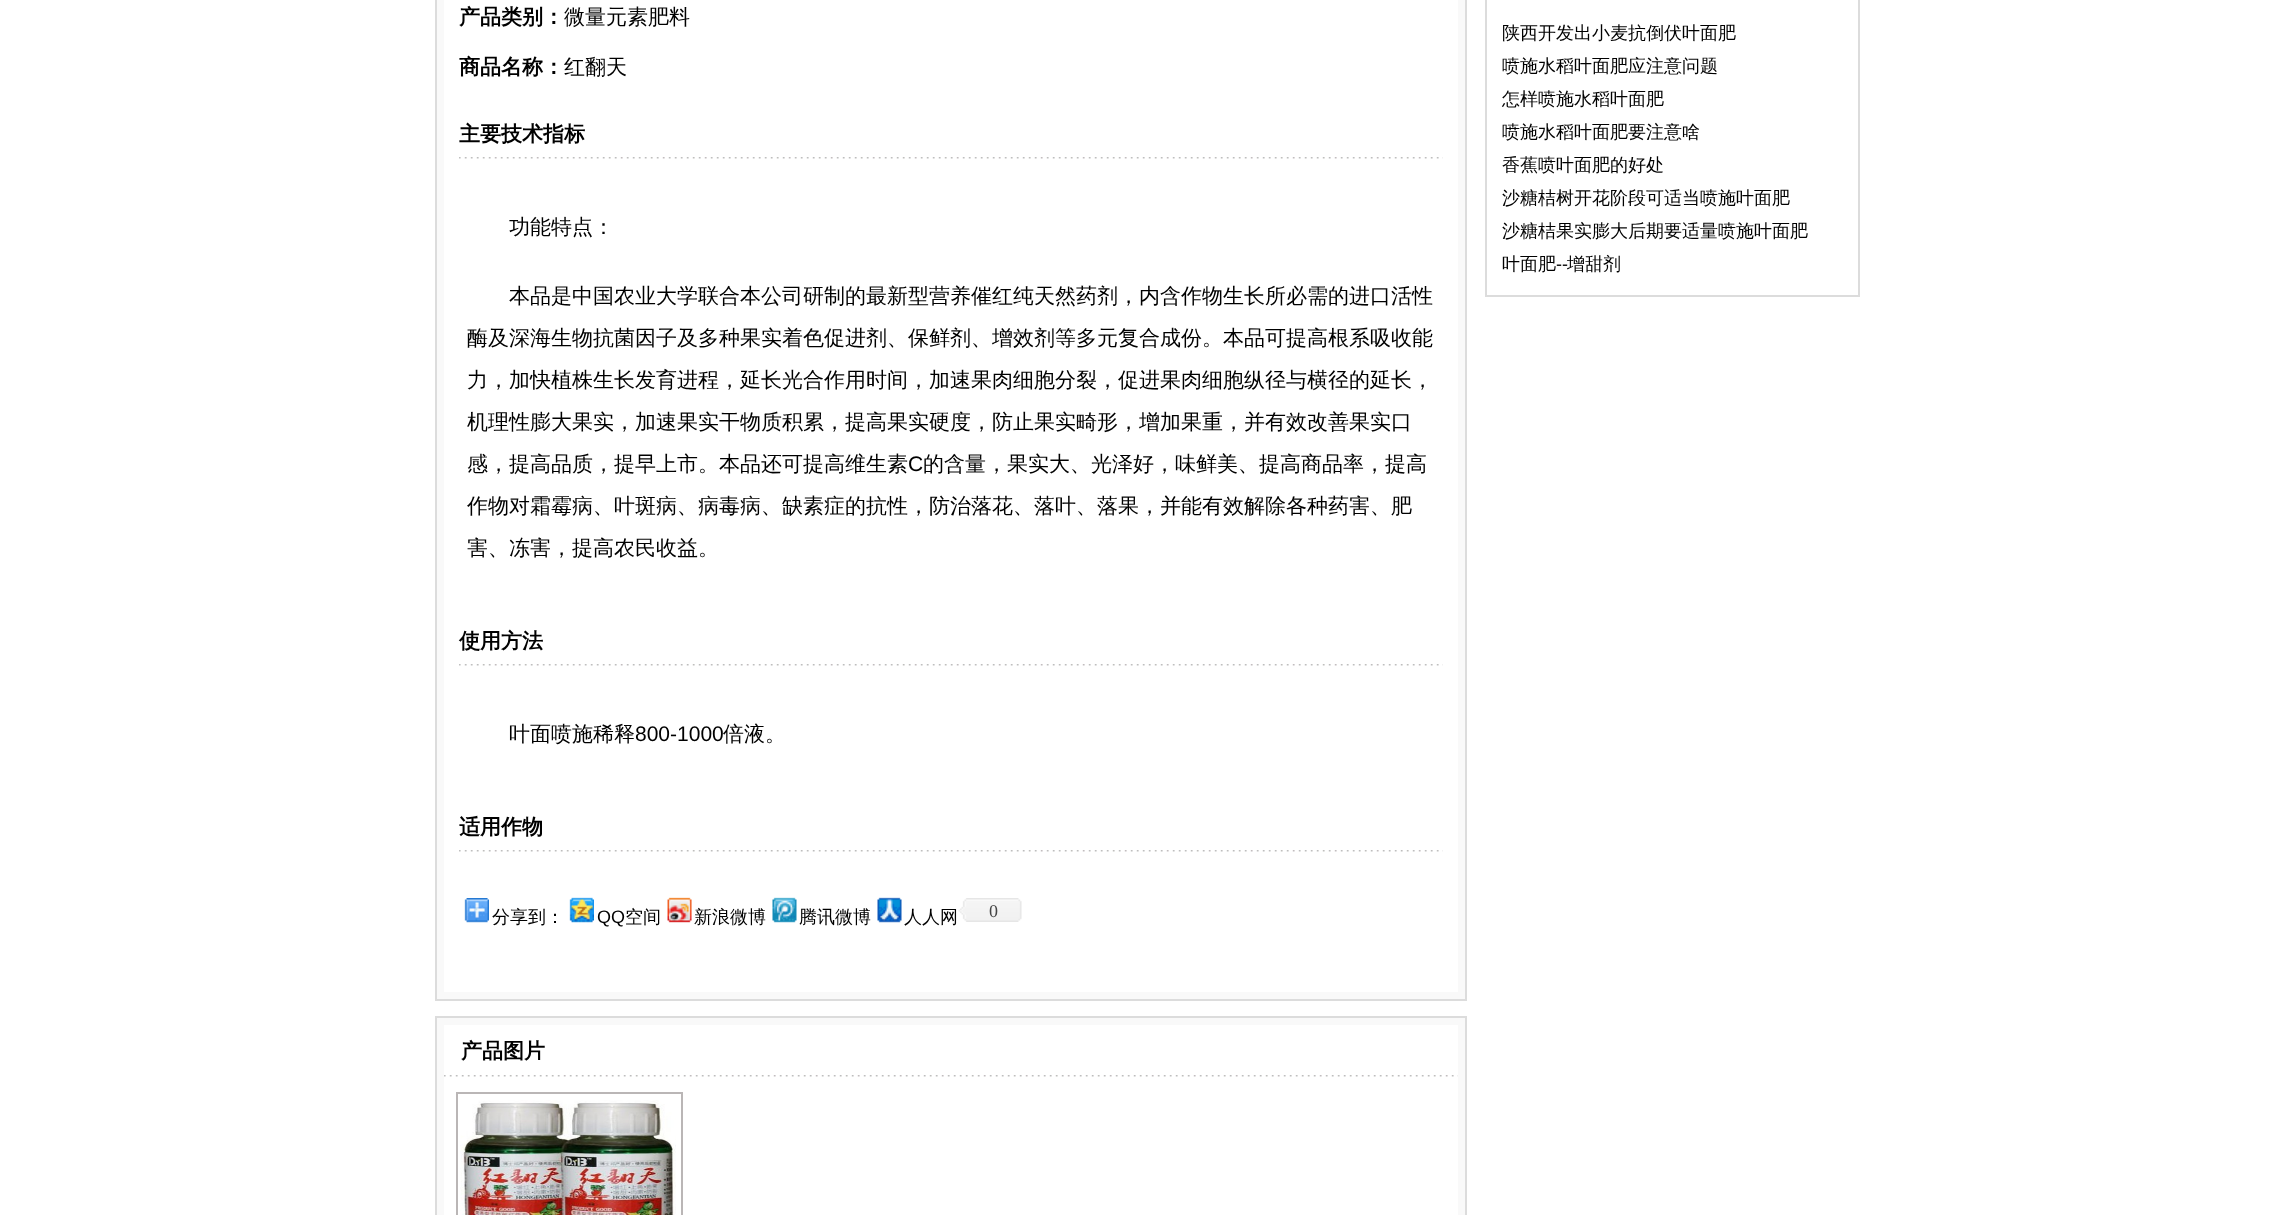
<svg xmlns="http://www.w3.org/2000/svg" width="2294" height="1215">
<rect width="100%" height="100%" fill="#fff"/>
<rect x="436" y="-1" width="1030" height="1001" fill="#f9f9f9" stroke="#dcdcdc" stroke-width="2"/>
<rect x="444" width="1014" height="992" fill="#fff"/>
<text x="459" y="24" style="font-family:WenQuanYi Zen Hei;font-size:21px;font-weight:bold;fill:#000">产品类别：</text>
<text x="564" y="24" style="font-family:WenQuanYi Zen Hei;font-size:21px;font-weight:500;fill:#000">微量元素肥料</text>
<text x="459" y="74" style="font-family:WenQuanYi Zen Hei;font-size:21px;font-weight:bold;fill:#000">商品名称：</text>
<text x="564" y="74" style="font-family:WenQuanYi Zen Hei;font-size:21px;font-weight:500;fill:#000">红翻天</text>
<image x="459" y="157" width="984" height="2" href="media/1.png"/>
<text x="459" y="141" style="font-family:WenQuanYi Zen Hei;font-size:21px;font-weight:bold;fill:#000">主要技术指标</text>
<text x="509" y="234" style="font-family:WenQuanYi Zen Hei;font-size:21px;font-weight:500;fill:#000">功能特点：</text>
<text x="509" y="303" style="font-family:WenQuanYi Zen Hei;font-size:21px;font-weight:500;fill:#000">本品是中国农业大学联合本公司研制的最新型营养催红纯天然药剂，内含作物生长所必需的进口活性</text>
<text x="467" y="345" style="font-family:WenQuanYi Zen Hei;font-size:21px;font-weight:500;fill:#000">酶及深海生物抗菌因子及多种果实着色促进剂、保鲜剂、增效剂等多元复合成份。本品可提高根系吸收能</text>
<text x="467" y="387" style="font-family:WenQuanYi Zen Hei;font-size:21px;font-weight:500;fill:#000">力，加快植株生长发育进程，延长光合作用时间，加速果肉细胞分裂，促进果肉细胞纵径与横径的延长，</text>
<text x="467" y="429" style="font-family:WenQuanYi Zen Hei;font-size:21px;font-weight:500;fill:#000">机理性膨大果实，加速果实干物质积累，提高果实硬度，防止果实畸形，增加果重，并有效改善果实口</text>
<text x="467" y="471" style="font-family:WenQuanYi Zen Hei;font-size:21px;font-weight:500;fill:#000">感，提高品质，提早上市。本品还可提高维生素</text>
<text x="908" y="471" style="font-family:Liberation Sans;font-size:21px;fill:#000">C</text>
<text x="923" y="471" style="font-family:WenQuanYi Zen Hei;font-size:21px;font-weight:500;fill:#000">的含量，果实大、光泽好，味鲜美、提高商品率，提高</text>
<text x="467" y="513" style="font-family:WenQuanYi Zen Hei;font-size:21px;font-weight:500;fill:#000">作物对霜霉病、叶斑病、病毒病、缺素症的抗性，防治落花、落叶、落果，并能有效解除各种药害、肥</text>
<text x="467" y="555" style="font-family:WenQuanYi Zen Hei;font-size:21px;font-weight:500;fill:#000">害、冻害，提高农民收益。</text>
<image x="459" y="664" width="984" height="2" href="media/1.png"/>
<text x="459" y="648" style="font-family:WenQuanYi Zen Hei;font-size:21px;font-weight:bold;fill:#000">使用方法</text>
<text x="509" y="741" style="font-family:WenQuanYi Zen Hei;font-size:21px;font-weight:500;fill:#000">叶面喷施稀释</text>
<text x="635" y="741" style="font-family:Liberation Sans;font-size:21px;fill:#000">800-1000</text>
<text x="723" y="741" style="font-family:WenQuanYi Zen Hei;font-size:21px;font-weight:500;fill:#000">倍液。</text>
<image x="459" y="850" width="984" height="2" href="media/1.png"/>
<text x="459" y="834" style="font-family:WenQuanYi Zen Hei;font-size:21px;font-weight:bold;fill:#000">适用作物</text>
<image x="464" y="898" width="25" height="25" href="media/2.png"/>
<text x="492" y="923" style="font-family:WenQuanYi Zen Hei;font-size:18px;font-weight:500;fill:#000">分享到：</text>
<image x="569" y="897" width="25" height="26" href="media/3.png"/>
<text x="597" y="923" style="font-family:Liberation Sans;font-size:18px;fill:#000">QQ</text>
<text x="625" y="923" style="font-family:WenQuanYi Zen Hei;font-size:18px;font-weight:500;fill:#000">空间</text>
<image x="667" y="897" width="25" height="26" href="media/4.png"/>
<text x="694" y="923" style="font-family:WenQuanYi Zen Hei;font-size:18px;font-weight:500;fill:#000">新浪微博</text>
<image x="772" y="897" width="25" height="26" href="media/5.png"/>
<text x="799" y="923" style="font-family:WenQuanYi Zen Hei;font-size:18px;font-weight:500;fill:#000">腾讯微博</text>
<image x="877" y="897" width="25" height="26" href="media/6.png"/>
<text x="904" y="923" style="font-family:WenQuanYi Zen Hei;font-size:18px;font-weight:500;fill:#000">人人网</text>
<image x="958" y="898" width="64" height="24" href="media/7.png"/>
<text x="989" y="917" style="font-family:Liberation Serif;font-size:18px;fill:#454545">0</text>
<rect x="436" y="1017" width="1030" height="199" fill="#f9f9f9" stroke="#dcdcdc" stroke-width="2"/>
<rect x="444" y="1025" width="1014" height="190" fill="#fff"/>
<image x="444" y="1075" width="1014" height="2" href="media/8.png"/>
<text x="461" y="1058" style="font-family:WenQuanYi Zen Hei;font-size:21px;font-weight:bold;fill:#000">产品图片</text>
<rect x="457" y="1093" width="225" height="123" fill="none" stroke="#bab6b6" stroke-width="2"/>
<image x="460" y="1100" width="216" height="115" href="media/9.png"/>
<rect x="1486" y="-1" width="373" height="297" fill="none" stroke="#dcdcdc" stroke-width="2"/>
<text x="1502" y="39" style="font-family:WenQuanYi Zen Hei;font-size:18px;font-weight:500;fill:#000">陕西开发出小麦抗倒伏叶面肥</text>
<text x="1502" y="72" style="font-family:WenQuanYi Zen Hei;font-size:18px;font-weight:500;fill:#000">喷施水稻叶面肥应注意问题</text>
<text x="1502" y="105" style="font-family:WenQuanYi Zen Hei;font-size:18px;font-weight:500;fill:#000">怎样喷施水稻叶面肥</text>
<text x="1502" y="138" style="font-family:WenQuanYi Zen Hei;font-size:18px;font-weight:500;fill:#000">喷施水稻叶面肥要注意啥</text>
<text x="1502" y="171" style="font-family:WenQuanYi Zen Hei;font-size:18px;font-weight:500;fill:#000">香蕉喷叶面肥的好处</text>
<text x="1502" y="204" style="font-family:WenQuanYi Zen Hei;font-size:18px;font-weight:500;fill:#000">沙糖桔树开花阶段可适当喷施叶面肥</text>
<text x="1502" y="237" style="font-family:WenQuanYi Zen Hei;font-size:18px;font-weight:500;fill:#000">沙糖桔果实膨大后期要适量喷施叶面肥</text>
<text x="1502" y="270" style="font-family:WenQuanYi Zen Hei;font-size:18px;font-weight:500;fill:#000">叶面肥</text>
<text x="1556" y="270" style="font-family:Liberation Sans;font-size:18px;fill:#000">--</text>
<text x="1567" y="270" style="font-family:WenQuanYi Zen Hei;font-size:18px;font-weight:500;fill:#000">增甜剂</text>
</svg>
